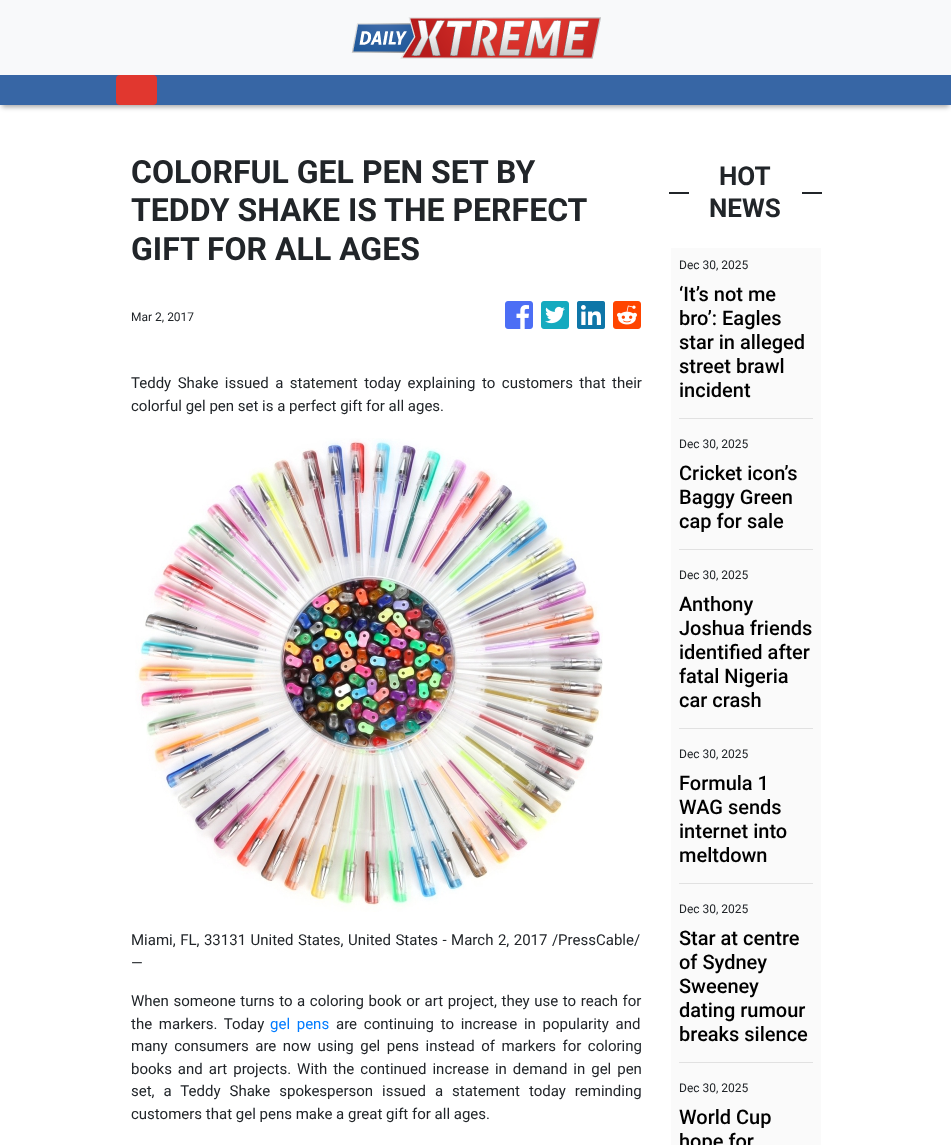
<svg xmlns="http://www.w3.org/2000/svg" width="951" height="1145">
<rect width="100%" height="100%" fill="#fff"/>
<rect width="951" height="75" fill="#f8f9fa"/>
<image x="351" y="17" width="250" height="42" href="media/1.png"/>
<rect x="2" y="81" width="947" height="26" fill="#00000059" filter="blur(2.5px)"/>
<rect y="75" width="951" height="30" fill="#3766a5"/>
<rect x="116" y="75" width="41" height="30" rx="4" fill="#e1372f"/>
<text x="131" y="183" style="font-family:Roboto;font-size:32px;font-weight:bold;fill:#212529">COLORFUL GEL PEN SET BY</text>
<text x="131" y="221" style="font-family:Roboto;font-size:32px;font-weight:bold;fill:#212529">TEDDY SHAKE IS THE PERFECT</text>
<text x="131" y="260" style="font-family:Roboto;font-size:32px;font-weight:bold;fill:#212529">GIFT FOR ALL AGES</text>
<text x="131" y="321" style="font-family:Roboto;font-size:12px;fill:#212529">Mar 2, 2017</text>
<image x="505" y="301" width="28" height="28" href="media/2.png"/>
<image x="541" y="301" width="28" height="28" href="media/3.png"/>
<image x="577" y="301" width="28" height="28" href="media/4.png"/>
<image x="613" y="301" width="28" height="28" href="media/5.png"/>
<text x="131" y="388" word-spacing="2.75" style="font-family:Roboto;font-size:15px;fill:#212529">Teddy Shake issued a statement today explaining to customers that their</text>
<text x="131" y="411" style="font-family:Roboto;font-size:15px;fill:#212529">colorful gel pen set is a perfect gift for all ages.</text>
<image x="135" y="438" width="468" height="474" href="media/6.png"/>
<text x="131" y="945" word-spacing="0.75" style="font-family:Roboto;font-size:15px;fill:#212529">Miami, FL, 33131 United States, United States - March 2, 2017 /PressCable/</text>
<text x="131" y="968" style="font-family:Roboto;font-size:15px;fill:#212529">—</text>
<text x="131" y="1006" word-spacing="0.9" style="font-family:Roboto;font-size:15px;fill:#212529">When someone turns to a coloring book or art project, they use to reach for</text>
<text x="131" y="1029" word-spacing="3" style="font-family:Roboto;font-size:15px;fill:#212529">the markers. Today</text>
<text x="270" y="1029" word-spacing="3" style="font-family:Roboto;font-size:15px;fill:#007bff">gel pens</text>
<text x="336" y="1029" word-spacing="3" style="font-family:Roboto;font-size:15px;fill:#212529">are continuing to increase in popularity and</text>
<text x="131" y="1051" word-spacing="2.75" style="font-family:Roboto;font-size:15px;fill:#212529">many consumers are now using gel pens instead of markers for coloring</text>
<text x="131" y="1074" word-spacing="2.25" style="font-family:Roboto;font-size:15px;fill:#212529">books and art projects. With the continued increase in demand in gel pen</text>
<text x="131" y="1096" word-spacing="5.25" style="font-family:Roboto;font-size:15px;fill:#212529">set, a Teddy Shake spokesperson issued a statement today reminding</text>
<text x="131" y="1119" style="font-family:Roboto;font-size:15px;fill:#212529">customers that gel pens make a great gift for all ages.</text>
<text x="719" y="185" style="font-family:Roboto;font-size:26px;font-weight:bold;fill:#212529">HOT</text>
<rect x="669" y="192" width="20" height="2" fill="#212529"/>
<rect x="802" y="192" width="20" height="2" fill="#212529"/>
<text x="709" y="217" style="font-family:Roboto;font-size:26px;font-weight:bold;fill:#212529">NEWS</text>
<rect x="671" y="248" width="150" height="897" fill="#fafafa"/>
<text x="679" y="269" style="font-family:Roboto;font-size:12px;fill:#212529">Dec 30, 2025</text>
<text x="679" y="301" style="font-family:Roboto;font-size:20px;font-weight:500;fill:#000">‘It’s not me</text>
<text x="679" y="325" style="font-family:Roboto;font-size:20px;font-weight:500;fill:#000">bro’: Eagles</text>
<text x="679" y="349" style="font-family:Roboto;font-size:20px;font-weight:500;fill:#000">star in alleged</text>
<text x="679" y="373" style="font-family:Roboto;font-size:20px;font-weight:500;fill:#000">street brawl</text>
<text x="679" y="397" style="font-family:Roboto;font-size:20px;font-weight:500;fill:#000">incident</text>
<rect x="679" y="418" width="134" height="1" fill="#e1e1e1"/>
<text x="679" y="448" style="font-family:Roboto;font-size:12px;fill:#212529">Dec 30, 2025</text>
<text x="679" y="480" style="font-family:Roboto;font-size:20px;font-weight:500;fill:#000">Cricket icon’s</text>
<text x="679" y="504" style="font-family:Roboto;font-size:20px;font-weight:500;fill:#000">Baggy Green</text>
<text x="679" y="528" style="font-family:Roboto;font-size:20px;font-weight:500;fill:#000">cap for sale</text>
<rect x="679" y="549" width="134" height="1" fill="#e1e1e1"/>
<text x="679" y="579" style="font-family:Roboto;font-size:12px;fill:#212529">Dec 30, 2025</text>
<text x="679" y="611" style="font-family:Roboto;font-size:20px;font-weight:500;fill:#000">Anthony</text>
<text x="679" y="635" style="font-family:Roboto;font-size:20px;font-weight:500;fill:#000">Joshua friends</text>
<text x="679" y="659" style="font-family:Roboto;font-size:20px;font-weight:500;fill:#000">identified after</text>
<text x="679" y="683" style="font-family:Roboto;font-size:20px;font-weight:500;fill:#000">fatal Nigeria</text>
<text x="679" y="707" style="font-family:Roboto;font-size:20px;font-weight:500;fill:#000">car crash</text>
<rect x="679" y="728" width="134" height="1" fill="#e1e1e1"/>
<text x="679" y="758" style="font-family:Roboto;font-size:12px;fill:#212529">Dec 30, 2025</text>
<text x="679" y="790" style="font-family:Roboto;font-size:20px;font-weight:500;fill:#000">Formula 1</text>
<text x="679" y="814" style="font-family:Roboto;font-size:20px;font-weight:500;fill:#000">WAG sends</text>
<text x="679" y="838" style="font-family:Roboto;font-size:20px;font-weight:500;fill:#000">internet into</text>
<text x="679" y="862" style="font-family:Roboto;font-size:20px;font-weight:500;fill:#000">meltdown</text>
<rect x="679" y="883" width="134" height="1" fill="#e1e1e1"/>
<text x="679" y="913" style="font-family:Roboto;font-size:12px;fill:#212529">Dec 30, 2025</text>
<text x="679" y="945" style="font-family:Roboto;font-size:20px;font-weight:500;fill:#000">Star at centre</text>
<text x="679" y="969" style="font-family:Roboto;font-size:20px;font-weight:500;fill:#000">of Sydney</text>
<text x="679" y="993" style="font-family:Roboto;font-size:20px;font-weight:500;fill:#000">Sweeney</text>
<text x="679" y="1017" style="font-family:Roboto;font-size:20px;font-weight:500;fill:#000">dating rumour</text>
<text x="679" y="1041" style="font-family:Roboto;font-size:20px;font-weight:500;fill:#000">breaks silence</text>
<rect x="679" y="1062" width="134" height="1" fill="#e1e1e1"/>
<text x="679" y="1092" style="font-family:Roboto;font-size:12px;fill:#212529">Dec 30, 2025</text>
<text x="679" y="1124" style="font-family:Roboto;font-size:20px;font-weight:500;fill:#000">World Cup</text>
<text x="679" y="1148" style="font-family:Roboto;font-size:20px;font-weight:500;fill:#000">hope for</text>
</svg>
